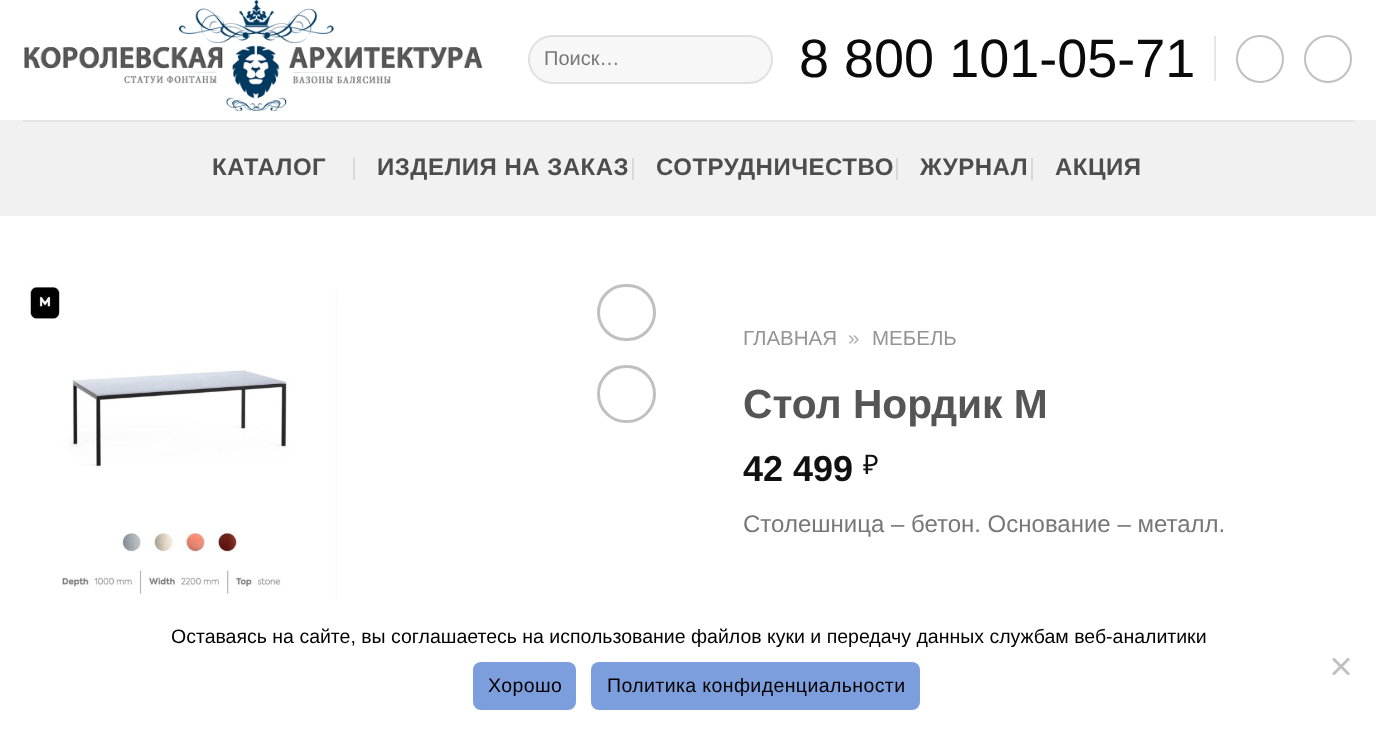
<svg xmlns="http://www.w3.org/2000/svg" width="1376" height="732">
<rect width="100%" height="100%" fill="#fff"/>
<image x="24" y="0" width="459" height="111" href="media/1.png"/>
<rect x="528" y="35" width="245" height="49" rx="24.5" fill="#f7f7f7"/>
<rect x="529" y="36" width="243" height="47" rx="23.5" fill="none" stroke="#00000017" stroke-width="2"/>
<text x="544" y="65" style="font-family:Liberation Sans;font-size:20px;fill:#777">Поиск…</text>
<text x="799" y="77" style="font-family:Liberation Sans;font-size:54px;fill:#0a0a0a">8 800 101-05-71</text>
<rect x="1214" y="36" width="2" height="45" fill="#e6e6e6"/>
<circle cx="1260" cy="59" r="23" fill="none" stroke="#c0c0c0" stroke-width="2"/>
<circle cx="1328" cy="59" r="23" fill="none" stroke="#c0c0c0" stroke-width="2"/>
<rect y="120" width="1376" height="96" fill="#f1f1f1"/>
<rect x="23" y="120" width="1332" height="2" fill="#e5e5e5"/>
<text x="212" y="175" style="font-family:Liberation Sans;font-size:24px;font-weight:bold;letter-spacing:0.5px;fill:#4d4d4d">КАТАЛОГ</text>
<rect x="353" y="158" width="2" height="22" fill="#d9d9d9"/>
<text x="377" y="175" style="font-family:Liberation Sans;font-size:24px;font-weight:bold;letter-spacing:0.5px;fill:#4d4d4d">ИЗДЕЛИЯ НА ЗАКАЗ</text>
<rect x="632" y="158" width="2" height="22" fill="#d9d9d9"/>
<text x="656" y="175" style="font-family:Liberation Sans;font-size:24px;font-weight:bold;letter-spacing:0.5px;fill:#4d4d4d">СОТРУДНИЧЕСТВО</text>
<rect x="896" y="158" width="2" height="22" fill="#d9d9d9"/>
<text x="920" y="175" style="font-family:Liberation Sans;font-size:24px;font-weight:bold;letter-spacing:0.5px;fill:#4d4d4d">ЖУРНАЛ</text>
<rect x="1031" y="158" width="2" height="22" fill="#d9d9d9"/>
<text x="1055" y="175" style="font-family:Liberation Sans;font-size:24px;font-weight:bold;letter-spacing:0.5px;fill:#4d4d4d">АКЦИЯ</text>
<image x="22" y="286" width="315" height="314" href="media/2.png"/>
<rect x="598.5" y="285.5" width="56" height="54" rx="27" fill="none" stroke="#c0c0c0" stroke-width="3"/>
<rect x="598.5" y="366.5" width="56" height="55" rx="27.5" fill="none" stroke="#c0c0c0" stroke-width="3"/>
<text x="743" y="345" style="font-family:Liberation Sans;font-size:20.5px;fill:#949494">ГЛАВНАЯ</text>
<text x="848" y="345" style="font-family:Liberation Sans;font-size:20.5px;fill:#b2b2b2">»</text>
<text x="872" y="345" style="font-family:Liberation Sans;font-size:20.5px;fill:#949494">МЕБЕЛЬ</text>
<text x="743" y="418" style="font-family:Liberation Sans;font-size:40.75px;font-weight:bold;fill:#555">Стол Нордик M</text>
<text x="743" y="481" style="font-family:Liberation Sans;font-size:36px;font-weight:bold;fill:#111">42 499</text>
<text x="863" y="474" style="font-family:Noto Sans;font-size:27px;fill:#111">₽</text>
<text x="743" y="532" style="font-family:Liberation Sans;font-size:24px;fill:#777">Столешница – бетон. Основание – металл.</text>
<text x="171" y="643" style="font-family:Liberation Sans;font-size:19.5px;fill:#000">Оставаясь на сайте, вы соглашаетесь на использование файлов куки и передачу данных службам веб-аналитики</text>
<path d="M1348 657.5l2 2l-16 16l-2-2z" fill="#c0c0c0"/>
<path d="M1332 659.5l2-2l16 16l-2 2z" fill="#c0c0c0"/>
<rect x="473" y="662" width="103" height="48" rx="8" fill="#7c9edd"/>
<text x="488" y="692" style="font-family:Liberation Sans;font-size:19.5px;letter-spacing:0.4px;fill:#000">Хорошо</text>
<rect x="591" y="662" width="329" height="48" rx="8" fill="#7c9edd"/>
<text x="607" y="692" style="font-family:Liberation Sans;font-size:19.5px;letter-spacing:0.4px;fill:#000">Политика конфиденциальности</text>
</svg>
